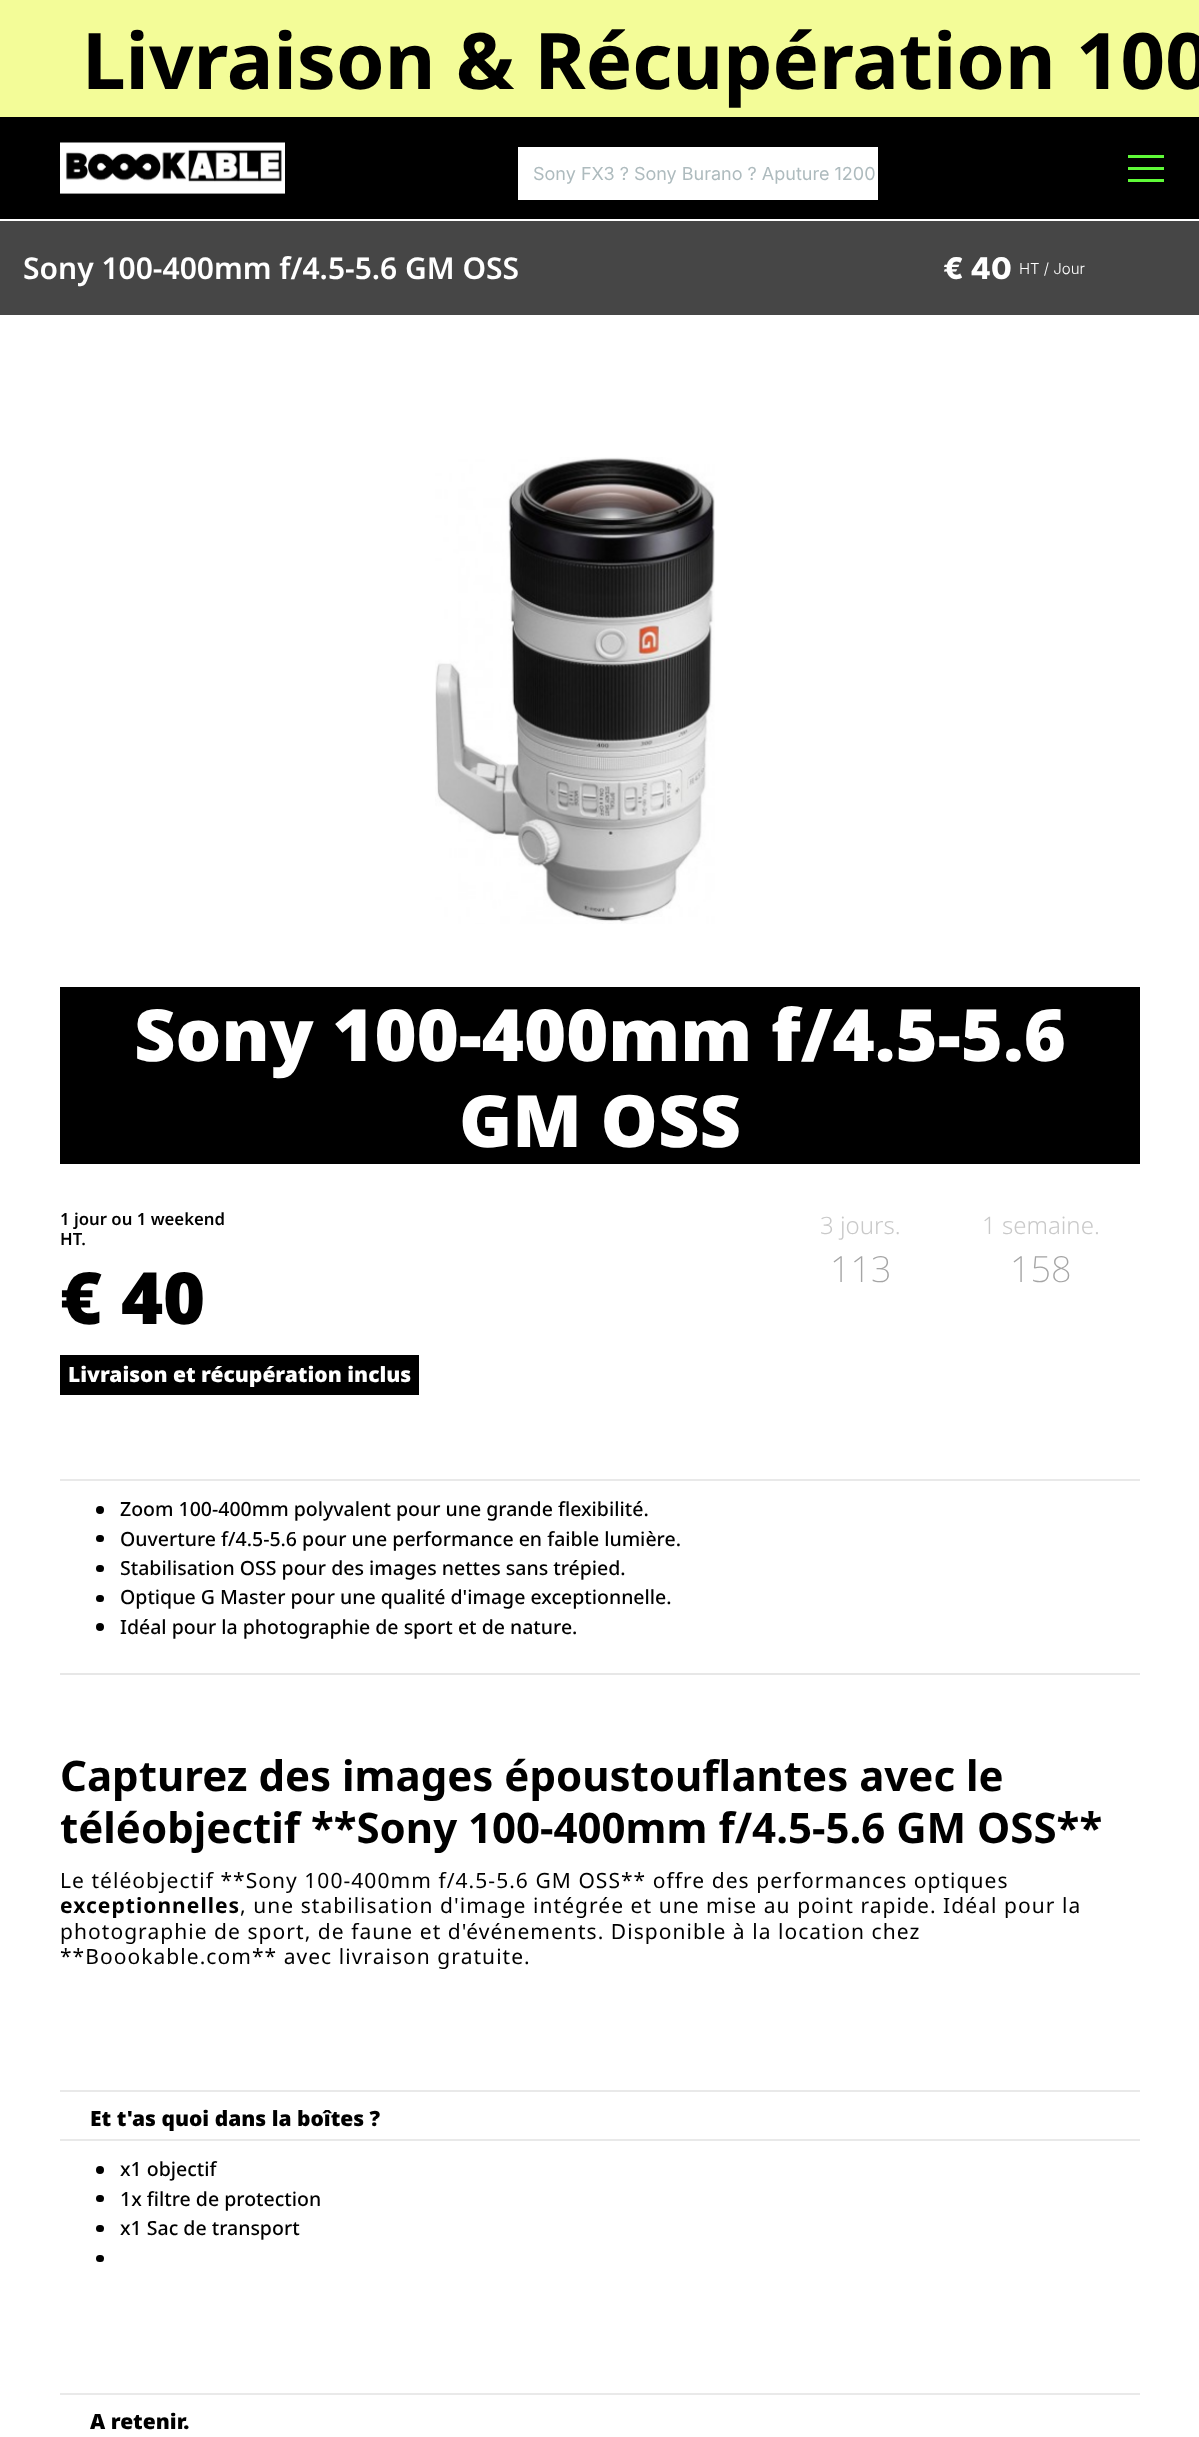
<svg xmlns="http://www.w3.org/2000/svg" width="1199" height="2437">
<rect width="100%" height="100%" fill="#fff"/>
<rect y="117" width="1199" height="102" fill="#000"/>
<rect width="1199" height="117" fill="#f3fc98"/>
<text x="82" y="89" style="font-family:Noto Sans;font-size:78px;font-weight:bold;fill:#000">Livraison &amp; Récupération 100</text>
<image x="60" y="142" width="225" height="52" href="media/1.png"/>
<rect x="518" y="147" width="360" height="53" fill="#fff"/>
<text x="533" y="180" style="font-family:Inter;font-size:18px;fill:#aebbbe">Sony FX3 ? Sony Burano ? Aputure 1200</text>
<rect x="1128" y="155" width="36" height="3" fill="#5ffa38"/>
<rect x="1128" y="167" width="36" height="3" fill="#5ffa38"/>
<rect x="1128" y="179" width="36" height="3" fill="#5ffa38"/>
<rect y="221" width="1199" height="94" fill="#464646"/>
<text x="23" y="279" style="font-family:Noto Sans;font-size:30px;font-weight:600;fill:#fff">Sony 100-400mm f/4.5-5.6 GM OSS</text>
<text x="943" y="279" style="font-family:Inter;font-size:30px;font-weight:800;fill:#fff">€ 40</text>
<text x="1019" y="274" style="font-family:Inter;font-size:15px;font-weight:300;fill:#fff">HT / Jour</text>
<image x="435" y="457" width="280" height="467" href="media/2.png"/>
<rect x="60" y="987" width="1080" height="177" fill="#000"/>
<text x="134" y="1061" style="font-family:Noto Sans;font-size:72px;font-weight:900;fill:#fff">Sony 100-400mm f/4.5-5.6</text>
<text x="459" y="1147" style="font-family:Noto Sans;font-size:72px;font-weight:900;fill:#fff">GM OSS</text>
<rect x="60" y="1673" width="1080" height="2" fill="#e7e7e7"/>
<text x="60" y="1225" style="font-family:Noto Sans;font-size:16.75px;font-weight:600;fill:#000">1 jour ou 1 weekend</text>
<text x="60" y="1245" style="font-family:Noto Sans;font-size:16.75px;font-weight:600;fill:#000">HT.</text>
<text x="60" y="1324" style="font-family:Noto Sans;font-size:72px;font-weight:900;fill:#000">€ 40</text>
<text x="820" y="1234" style="font-family:Noto Sans;font-size:24px;font-weight:300;fill:#c9c9c9">3 jours.</text>
<text x="830" y="1282" style="font-family:Noto Sans;font-size:36px;font-weight:200;fill:#a5a5a5">113</text>
<text x="982" y="1234" style="font-family:Noto Sans;font-size:24px;font-weight:300;fill:#c9c9c9">1 semaine.</text>
<text x="1010" y="1282" style="font-family:Noto Sans;font-size:36px;font-weight:200;fill:#a5a5a5">158</text>
<rect x="60" y="1355" width="359" height="40" fill="#000"/>
<text x="68" y="1382" style="font-family:Noto Sans;font-size:21px;font-weight:900;fill:#fff">Livraison et récupération inclus</text>
<rect x="60" y="1479" width="1080" height="2" fill="#e9e9e9"/>
<circle cx="100" cy="1510" r="4" fill="#000"/>
<text x="120" y="1516" style="font-family:Noto Sans;font-size:19.5px;font-weight:500;fill:#000">Zoom 100-400mm polyvalent pour une grande flexibilité.</text>
<rect x="96" y="1535" width="8" height="7" rx="3.5" fill="#000"/>
<text x="120" y="1546" style="font-family:Noto Sans;font-size:19.5px;font-weight:500;fill:#000">Ouverture f/4.5-5.6 pour une performance en faible lumière.</text>
<rect x="96" y="1565" width="8" height="7" rx="3.5" fill="#000"/>
<text x="120" y="1575" style="font-family:Noto Sans;font-size:19.5px;font-weight:500;fill:#000">Stabilisation OSS pour des images nettes sans trépied.</text>
<rect x="96" y="1595" width="8" height="7" rx="3.5" fill="#000"/>
<text x="120" y="1604" style="font-family:Noto Sans;font-size:19.5px;font-weight:500;fill:#000">Optique G Master pour une qualité d'image exceptionnelle.</text>
<circle cx="100" cy="1627" r="4" fill="#000"/>
<text x="120" y="1634" style="font-family:Noto Sans;font-size:19.5px;font-weight:500;fill:#000">Idéal pour la photographie de sport et de nature.</text>
<text x="60" y="1791" style="font-family:Noto Sans;font-size:42px;font-weight:bold;fill:#000">Capturez des images époustouflantes avec le</text>
<text x="60" y="1843" style="font-family:Noto Sans;font-size:42px;font-weight:bold;fill:#000">téléobjectif **Sony 100-400mm f/4.5-5.6 GM OSS**</text>
<text x="60" y="1888" style="font-family:Noto Sans;font-size:21px;letter-spacing:1.05px;fill:#000">Le téléobjectif **Sony 100-400mm f/4.5-5.6 GM OSS** offre des performances optiques</text>
<text x="60" y="1913" style="font-family:Noto Sans;font-size:21px;font-weight:bold;letter-spacing:1.05px;fill:#000">exceptionnelles</text>
<text x="240" y="1913" style="font-family:Noto Sans;font-size:21px;letter-spacing:1.05px;fill:#000">, une stabilisation d'image intégrée et une mise au point rapide. Idéal pour la</text>
<text x="60" y="1939" style="font-family:Noto Sans;font-size:21px;letter-spacing:1.05px;fill:#000">photographie de sport, de faune et d'événements. Disponible à la location chez</text>
<text x="60" y="1964" style="font-family:Noto Sans;font-size:21px;letter-spacing:1.05px;fill:#000">**Boookable.com** avec livraison gratuite.</text>
<rect x="60" y="2090" width="1080" height="2" fill="#e9e9e9"/>
<text x="90" y="2126" style="font-family:Noto Sans;font-size:21px;font-weight:900;fill:#000">Et t'as quoi dans la boîtes ?</text>
<rect x="60" y="2139" width="1080" height="2" fill="#e9e9e9"/>
<circle cx="100" cy="2170" r="4" fill="#000"/>
<text x="120" y="2176" style="font-family:Noto Sans;font-size:19.5px;font-weight:500;fill:#000">x1 objectif</text>
<rect x="96" y="2195" width="8" height="7" rx="3.5" fill="#000"/>
<text x="120" y="2206" style="font-family:Noto Sans;font-size:19.5px;font-weight:500;fill:#000">1x filtre de protection</text>
<rect x="96" y="2225" width="8" height="7" rx="3.5" fill="#000"/>
<text x="120" y="2235" style="font-family:Noto Sans;font-size:19.5px;font-weight:500;fill:#000">x1 Sac de transport</text>
<rect x="96" y="2255" width="8" height="7" rx="3.5" fill="#000"/>
<rect x="60" y="2393" width="1080" height="2" fill="#e9e9e9"/>
<text x="90" y="2429" style="font-family:Noto Sans;font-size:21px;font-weight:900;fill:#000">A retenir.</text>
</svg>
